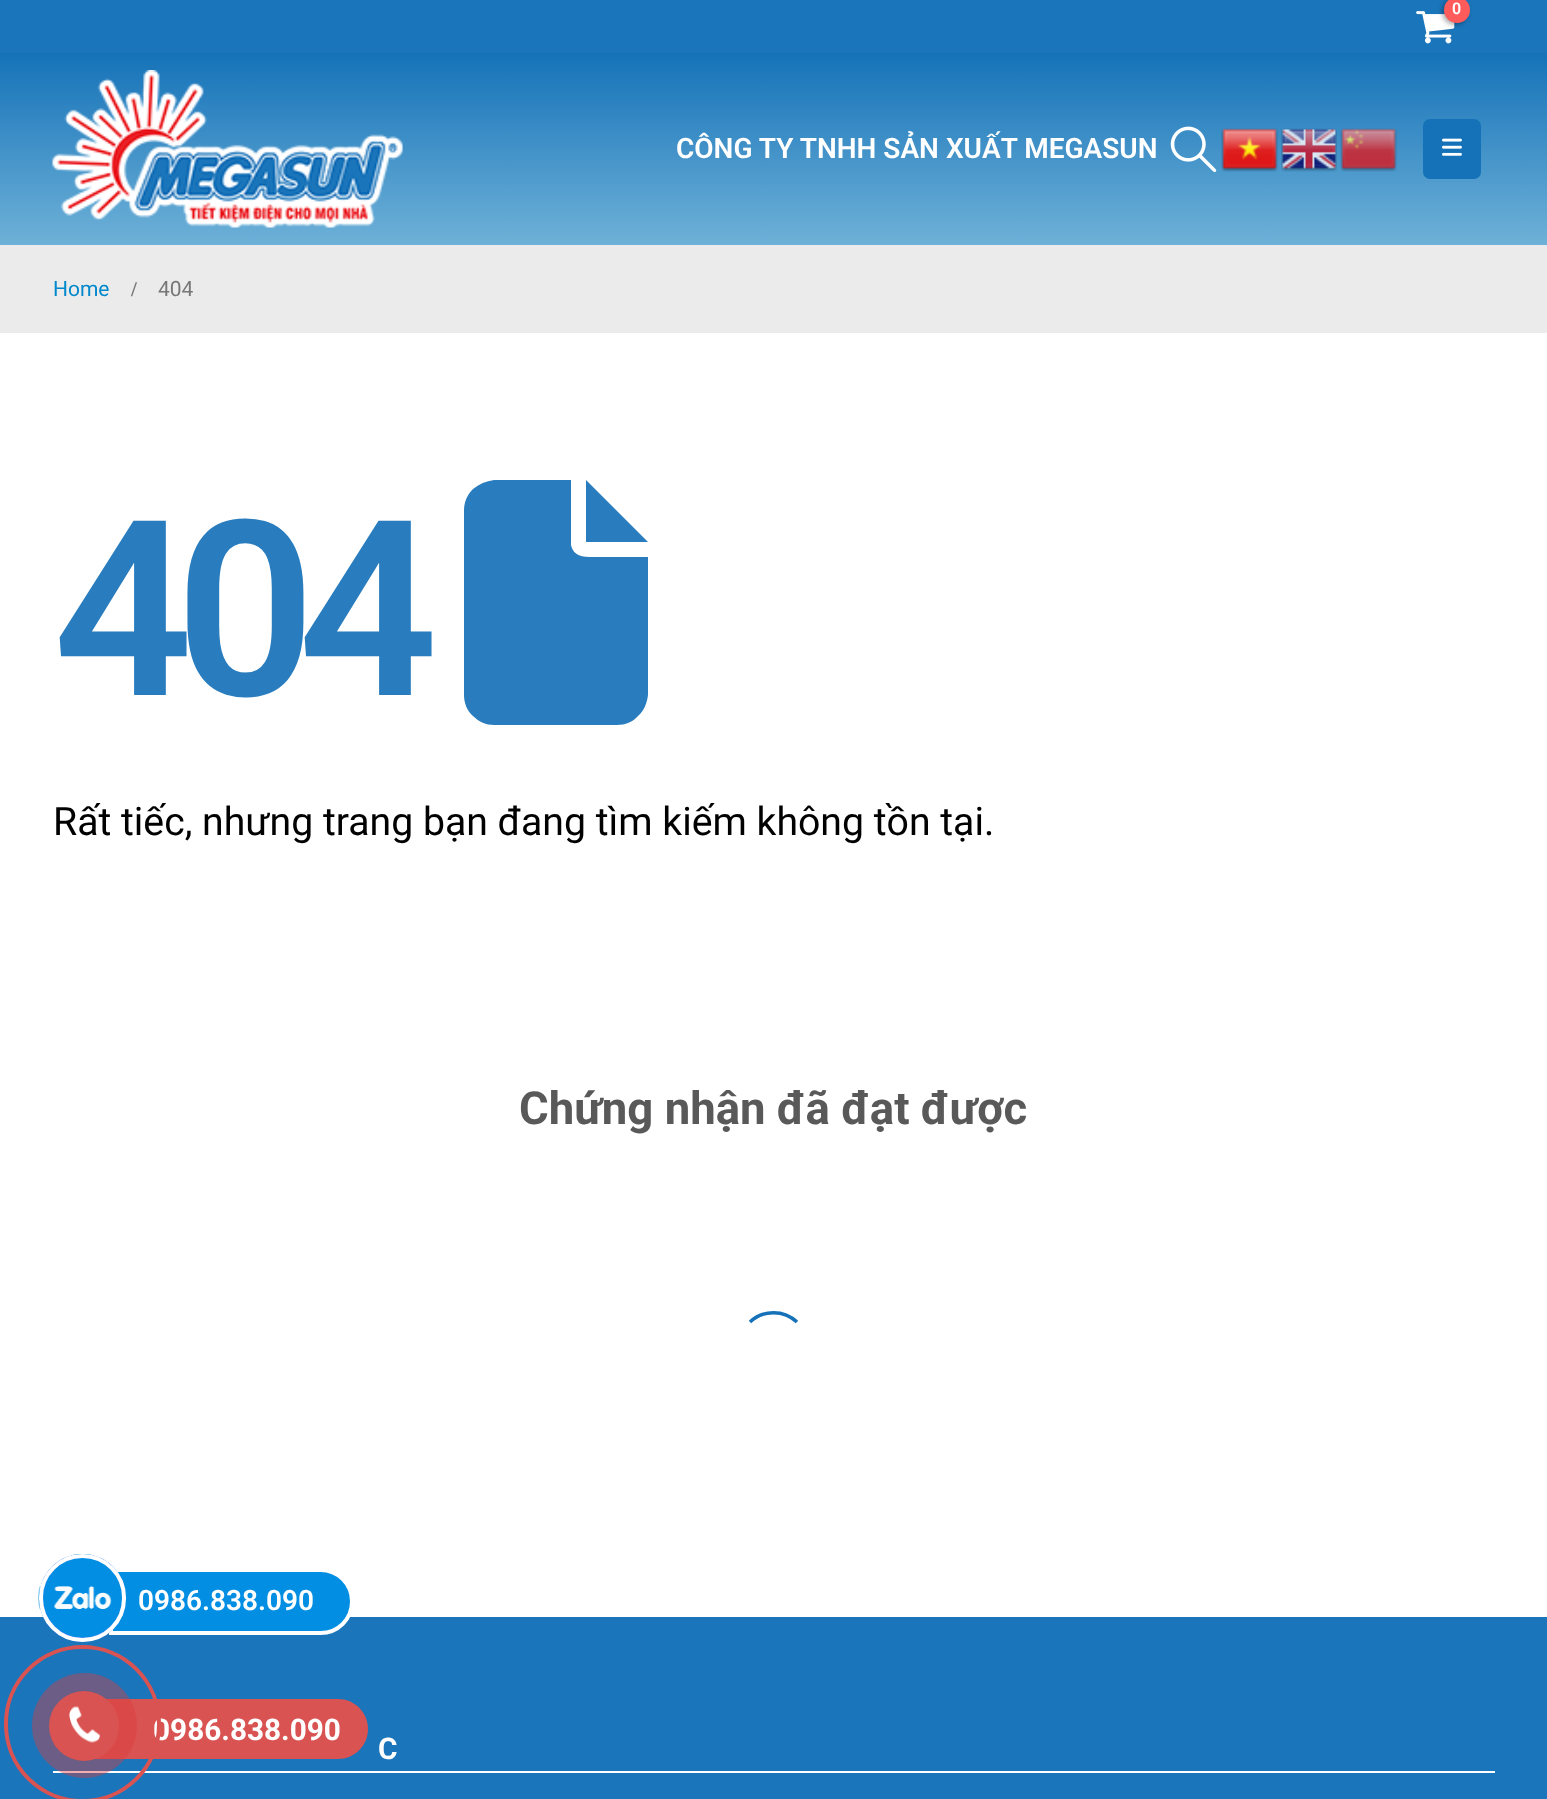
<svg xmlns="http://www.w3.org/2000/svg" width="1547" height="1799">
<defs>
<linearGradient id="g1" gradientUnits="userSpaceOnUse" x1="774" y1="52" x2="774" y2="245"><stop offset="0" stop-color="#1572b8"/><stop offset="1" stop-color="#6eb1d8"/></linearGradient>
</defs>
<rect width="100%" height="100%" fill="#fff"/>
<rect width="1547" height="53" fill="#1b75ba"/>
<image x="1416" y="11" width="39" height="33" href="media/1.png"/>
<rect x="1442" y="-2" width="26" height="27" rx="13" fill="#0000004d" filter="blur(2px)"/>
<circle cx="1457" cy="10" r="13" fill="#ff5b5b"/>
<text x="1452" y="14" style="font-family:Roboto;font-size:16px;font-weight:600;fill:#fff">0</text>
<rect y="53" width="1547" height="192" fill="url(#g1)"/>
<image x="52" y="70" width="351" height="158" href="media/2.png"/>
<text x="676" y="158" style="font-family:Roboto;font-size:28px;font-weight:600;fill:#fff">CÔNG TY TNHH SẢN XUẤT MEGASUN</text>
<image x="1170" y="126" width="47" height="47" href="media/3.png"/>
<image x="1221" y="128" width="57" height="44" href="media/4.png"/>
<image x="1281" y="128" width="56" height="44" href="media/5.png"/>
<image x="1340" y="128" width="57" height="44" href="media/6.png"/>
<rect x="1423" y="119" width="58" height="60" rx="7" fill="#1572b8"/>
<image x="1442" y="138" width="20" height="18" href="media/7.png"/>
<rect y="245" width="1547" height="88" fill="#ebebeb"/>
<text x="53" y="296" style="font-family:Roboto;font-size:21px;fill:#08c">Home</text>
<text x="131" y="296" style="font-family:Liberation Serif;font-size:21px;font-weight:bold;fill:#777">/</text>
<text x="158" y="296" style="font-family:Roboto;font-size:21px;fill:#777">404</text>
<text x="53" y="695" style="font-family:Roboto;font-size:245px;font-weight:600;letter-spacing:-17.5px;fill:#297dbe">404</text>
<path d="M464 511c0-9 3-16 9-22c6-5 13-8 21-9h77v65c3 13 15 12 25 12h52v138c-1 8-4 16-10 21c-5 6-13 9-21 9h-123c-8 0-15-3-21-9c-6-5-9-13-9-21zm184 31h-62v-62z" fill="#297dbe"/>
<text x="53" y="835" style="font-family:Roboto;font-size:39.2px;fill:#000">Rất tiếc, nhưng trang bạn đang tìm kiếm không tồn tại.</text>
<text x="519" y="1124" style="font-family:Roboto;font-size:45.5px;font-weight:bold;fill:#595959">Chứng nhận đã đạt được</text>
<path d="M750 1322c13-12.5 34-12.5 47 0" fill="none" stroke="#1572b8" stroke-width="3.5"/>
<rect y="1617" width="1547" height="182" fill="#1b75ba"/>
<rect x="53" y="1771" width="1442" height="2" fill="#fff"/>
<text x="378" y="1759" style="font-family:Roboto;font-size:29.75px;font-weight:bold;fill:#fff">C</text>
<path d="M111 1570h209.5c17.5 0 31.5 14 31.5 31.5c0 17.5-14 31.5-31.5 31.5h-209.5z" fill="#028fe3" stroke="#fff" stroke-width="4"/>
<rect x="39" y="1554" width="87" height="88" rx="43.5" fill="#4285f4"/>
<image x="38" y="1554" width="88" height="88" href="media/8.png"/>
<rect x="41" y="1556" width="83" height="84" rx="41.5" fill="none" stroke="#fff" stroke-width="4"/>
<text x="138" y="1610" style="font-family:Roboto;font-size:28px;font-weight:600;fill:#fff">0986.838.090</text>
<path d="M75 1699h263c16.5 0 30 13.5 30 30c0 16.5-13.5 30-30 30h-263z" fill="#d95352"/>
<text x="153" y="1740" style="font-family:Roboto;font-size:29.75px;font-weight:bold;fill:#fff">0986.838.090</text>
<rect x="6" y="1647" width="153" height="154" rx="76.5" fill="none" stroke="#d95352" stroke-width="4"/>
<circle cx="84.5" cy="1725.5" r="52.5" fill="#df3b3b69"/>
<circle cx="84" cy="1726" r="35" fill="#d95352"/>
<image x="69" y="1705" width="31" height="38" href="media/9.png"/>
</svg>
